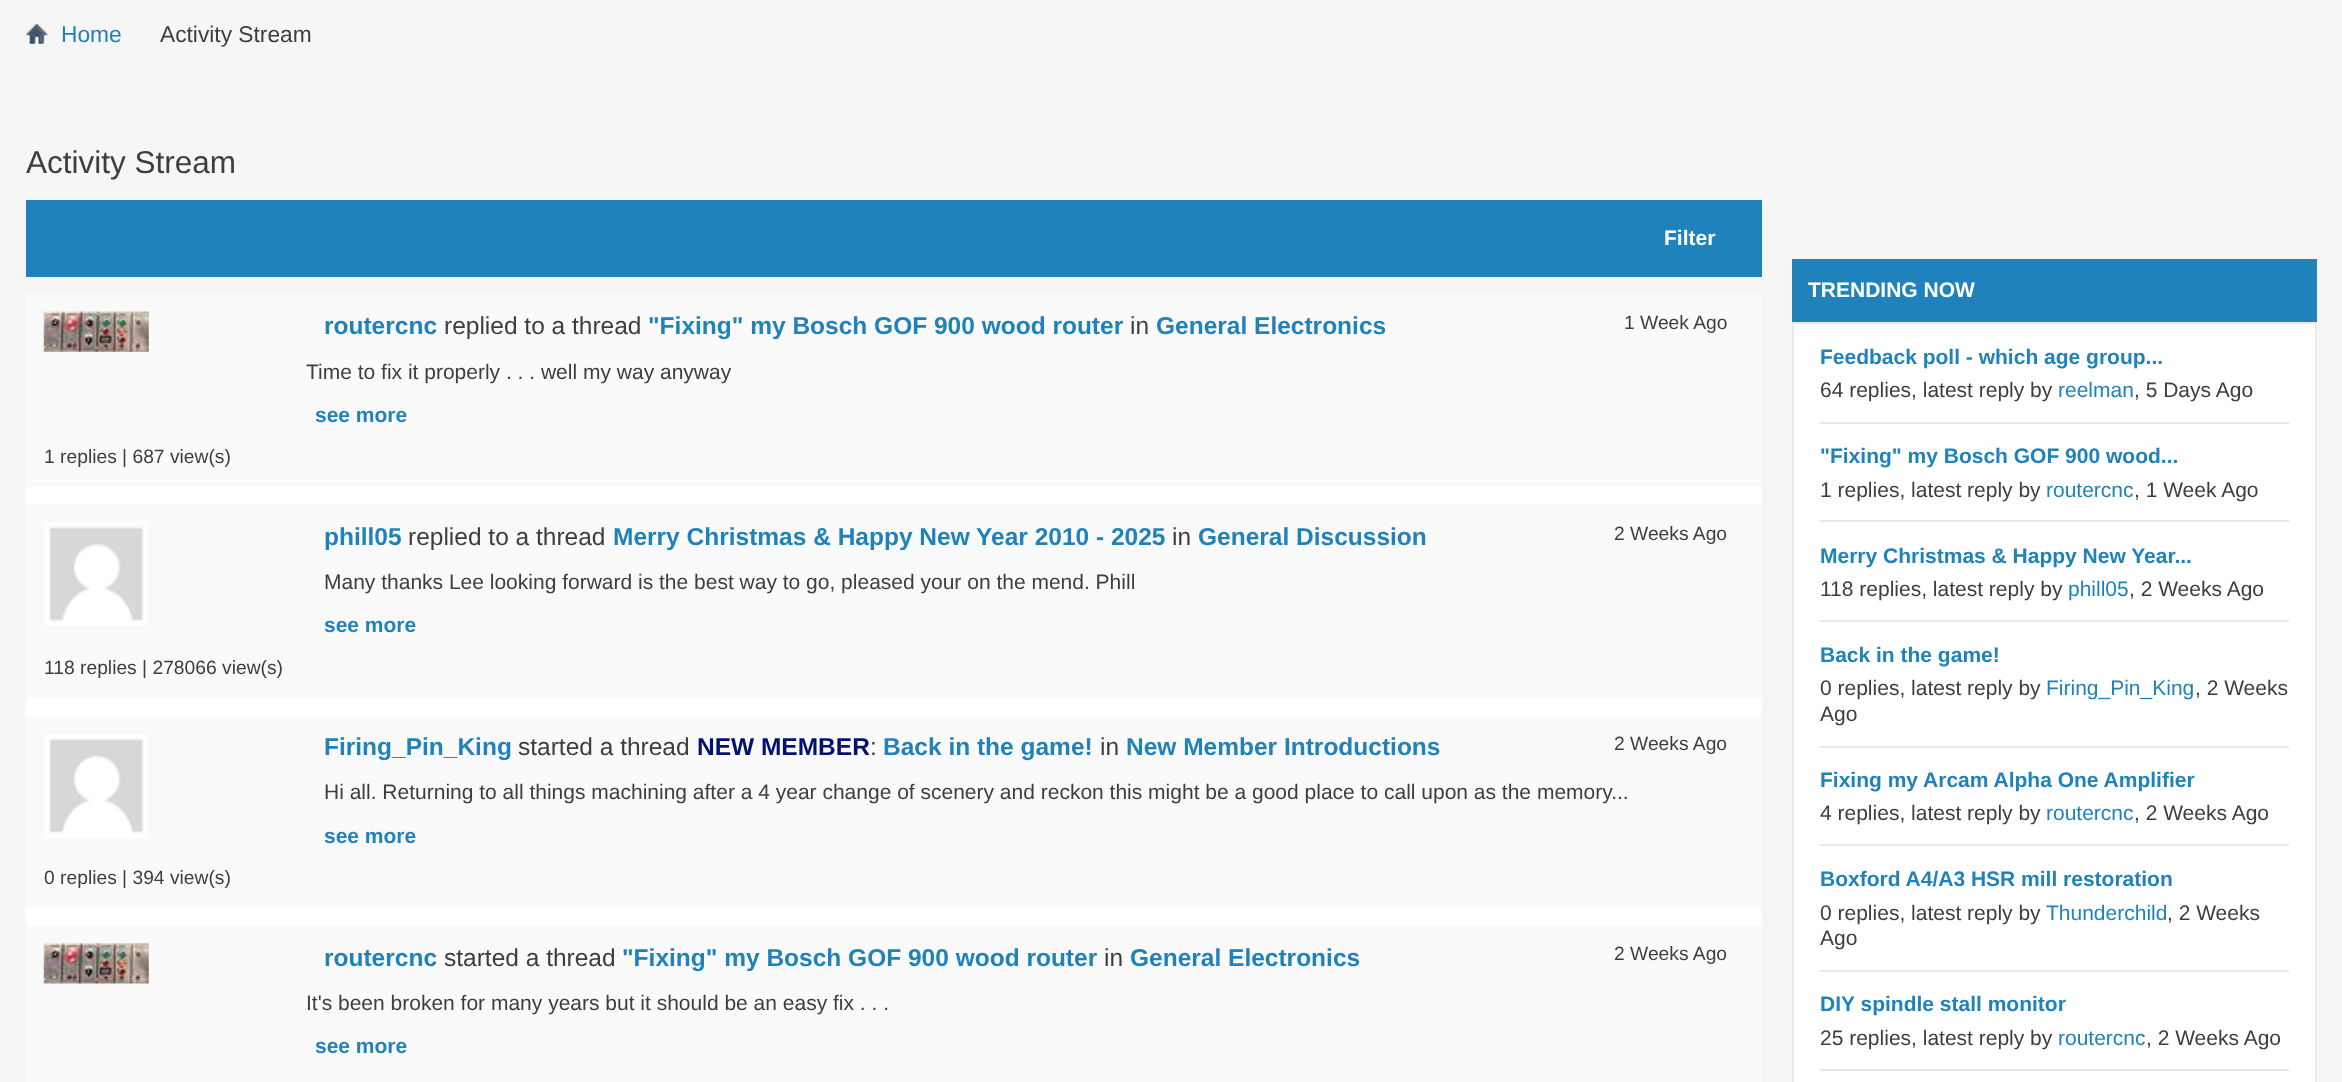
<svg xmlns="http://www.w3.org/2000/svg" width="2342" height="1082">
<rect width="100%" height="100%" fill="#f6f6f6"/>
<image x="26" y="24" width="22" height="20" href="media/1.png"/>
<text x="61" y="42" style="font-family:Liberation Sans;font-size:22.75px;fill:#1f82bb">Home</text>
<text x="160" y="42" style="font-family:Liberation Sans;font-size:22.75px;fill:#3e3e3e">Activity Stream</text>
<text x="26" y="173" style="font-family:Liberation Sans;font-size:31.5px;fill:#3e3e3e">Activity Stream</text>
<rect x="26" y="200" width="1736" height="77" fill="#1f82bb"/>
<text x="1664" y="245" style="font-family:Liberation Sans;font-size:21px;font-weight:bold;fill:#fff">Filter</text>
<rect x="26" y="487" width="1736" height="439" fill="#fff"/>
<rect x="26" y="294" width="1736" height="193" fill="#fafafa"/>
<image x="43" y="311" width="106" height="41" href="media/2.png"/>
<text x="324" y="334" style="font-family:Liberation Sans;font-size:24.5px;font-weight:bold;fill:#1f82bb">routercnc</text>
<text x="444" y="334" style="font-family:Liberation Sans;font-size:24.5px;fill:#3e3e3e">replied to a thread</text>
<text x="648" y="334" style="font-family:Liberation Sans;font-size:24.5px;font-weight:bold;fill:#1f82bb">"Fixing" my Bosch GOF 900 wood router</text>
<text x="1130" y="334" style="font-family:Liberation Sans;font-size:24.5px;fill:#3e3e3e">in</text>
<text x="1156" y="334" style="font-family:Liberation Sans;font-size:24.5px;font-weight:bold;fill:#1f82bb">General Electronics</text>
<text x="1624" y="329" style="font-family:Liberation Sans;font-size:19.25px;fill:#3e3e3e">1 Week Ago</text>
<text x="306" y="379" style="font-family:Liberation Sans;font-size:21px;fill:#3e3e3e">Time to fix it properly . . . well my way anyway</text>
<text x="315" y="422" style="font-family:Liberation Sans;font-size:21px;font-weight:bold;fill:#1f82bb">see more</text>
<text x="44" y="463" style="font-family:Liberation Sans;font-size:19.25px;fill:#3e3e3e">1 replies | 687 view(s)</text>
<rect x="26" y="504" width="1736" height="194" fill="#fafafa"/>
<image x="44" y="522" width="104" height="104" href="media/3.png"/>
<text x="324" y="545" style="font-family:Liberation Sans;font-size:24.5px;font-weight:bold;fill:#1f82bb">phill05</text>
<text x="408" y="545" style="font-family:Liberation Sans;font-size:24.5px;fill:#3e3e3e">replied to a thread</text>
<text x="613" y="545" style="font-family:Liberation Sans;font-size:24.5px;font-weight:bold;fill:#1f82bb">Merry Christmas &amp; Happy New Year 2010 - 2025</text>
<text x="1172" y="545" style="font-family:Liberation Sans;font-size:24.5px;fill:#3e3e3e">in</text>
<text x="1198" y="545" style="font-family:Liberation Sans;font-size:24.5px;font-weight:bold;fill:#1f82bb">General Discussion</text>
<text x="1614" y="540" style="font-family:Liberation Sans;font-size:19.25px;fill:#3e3e3e">2 Weeks Ago</text>
<text x="324" y="589" style="font-family:Liberation Sans;font-size:21px;fill:#3e3e3e">Many thanks Lee looking forward is the best way to go, pleased your on the mend. Phill</text>
<text x="324" y="632" style="font-family:Liberation Sans;font-size:21px;font-weight:bold;fill:#1f82bb">see more</text>
<text x="44" y="674" style="font-family:Liberation Sans;font-size:19.25px;fill:#3e3e3e">118 replies | 278066 view(s)</text>
<rect x="26" y="716" width="1736" height="192" fill="#fafafa"/>
<image x="44" y="734" width="104" height="104" href="media/4.png"/>
<text x="324" y="755" style="font-family:Liberation Sans;font-size:24.5px;font-weight:bold;fill:#1f82bb">Firing_Pin_King</text>
<text x="518" y="755" style="font-family:Liberation Sans;font-size:24.5px;fill:#3e3e3e">started a thread</text>
<text x="697" y="755" style="font-family:Liberation Sans;font-size:24.5px;font-weight:bold;fill:#031073">NEW MEMBER</text>
<text x="870" y="755" style="font-family:Liberation Sans;font-size:24.5px;fill:#3e3e3e">:</text>
<text x="883" y="755" style="font-family:Liberation Sans;font-size:24.5px;font-weight:bold;fill:#1f82bb">Back in the game!</text>
<text x="1100" y="755" style="font-family:Liberation Sans;font-size:24.5px;fill:#3e3e3e">in</text>
<text x="1126" y="755" style="font-family:Liberation Sans;font-size:24.5px;font-weight:bold;fill:#1f82bb">New Member Introductions</text>
<text x="1614" y="750" style="font-family:Liberation Sans;font-size:19.25px;fill:#3e3e3e">2 Weeks Ago</text>
<text x="324" y="799" style="font-family:Liberation Sans;font-size:21px;fill:#3e3e3e">Hi all. Returning to all things machining after a 4 year change of scenery and reckon this might be a good place to call upon as the memory...</text>
<text x="324" y="843" style="font-family:Liberation Sans;font-size:21px;font-weight:bold;fill:#1f82bb">see more</text>
<text x="44" y="884" style="font-family:Liberation Sans;font-size:19.25px;fill:#3e3e3e">0 replies | 394 view(s)</text>
<rect x="26" y="926" width="1736" height="156" fill="#fafafa"/>
<image x="43" y="943" width="106" height="41" href="media/5.png"/>
<text x="324" y="966" style="font-family:Liberation Sans;font-size:24.5px;font-weight:bold;fill:#1f82bb">routercnc</text>
<text x="444" y="966" style="font-family:Liberation Sans;font-size:24.5px;fill:#3e3e3e">started a thread</text>
<text x="622" y="966" style="font-family:Liberation Sans;font-size:24.5px;font-weight:bold;fill:#1f82bb">"Fixing" my Bosch GOF 900 wood router</text>
<text x="1104" y="966" style="font-family:Liberation Sans;font-size:24.5px;fill:#3e3e3e">in</text>
<text x="1130" y="966" style="font-family:Liberation Sans;font-size:24.5px;font-weight:bold;fill:#1f82bb">General Electronics</text>
<text x="1614" y="960" style="font-family:Liberation Sans;font-size:19.25px;fill:#3e3e3e">2 Weeks Ago</text>
<text x="306" y="1010" style="font-family:Liberation Sans;font-size:21px;fill:#3e3e3e">It's been broken for many years but it should be an easy fix . . .</text>
<text x="315" y="1053" style="font-family:Liberation Sans;font-size:21px;font-weight:bold;fill:#1f82bb">see more</text>
<rect x="1792" y="259" width="525" height="63" fill="#1f82bb"/>
<text x="1808" y="297" style="font-family:Liberation Sans;font-size:21px;font-weight:bold;fill:#fff">TRENDING NOW</text>
<rect x="1793" y="323" width="523" height="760" fill="#fff" stroke="#e9e9e9" stroke-width="2"/>
<text x="1820" y="364" style="font-family:Liberation Sans;font-size:21px;font-weight:bold;fill:#1f82bb">Feedback poll - which age group...</text>
<text x="1820" y="397" style="font-family:Liberation Sans;font-size:21px;fill:#3e3e3e">64 replies, latest reply by</text>
<text x="2058" y="397" style="font-family:Liberation Sans;font-size:21px;fill:#1f82bb">reelman</text>
<text x="2134" y="397" style="font-family:Liberation Sans;font-size:21px;fill:#3e3e3e">, 5 Days Ago</text>
<rect x="1820" y="422" width="469" height="2" fill="#e7e7e7"/>
<text x="1820" y="463" style="font-family:Liberation Sans;font-size:21px;font-weight:bold;fill:#1f82bb">"Fixing" my Bosch GOF 900 wood...</text>
<text x="1820" y="497" style="font-family:Liberation Sans;font-size:21px;fill:#3e3e3e">1 replies, latest reply by</text>
<text x="2046" y="497" style="font-family:Liberation Sans;font-size:21px;fill:#1f82bb">routercnc</text>
<text x="2134" y="497" style="font-family:Liberation Sans;font-size:21px;fill:#3e3e3e">, 1 Week Ago</text>
<rect x="1820" y="520" width="469" height="2" fill="#e7e7e7"/>
<text x="1820" y="563" style="font-family:Liberation Sans;font-size:21px;font-weight:bold;fill:#1f82bb">Merry Christmas &amp; Happy New Year...</text>
<text x="1820" y="596" style="font-family:Liberation Sans;font-size:21px;fill:#3e3e3e">118 replies, latest reply by</text>
<text x="2068" y="596" style="font-family:Liberation Sans;font-size:21px;fill:#1f82bb">phill05</text>
<text x="2129" y="596" style="font-family:Liberation Sans;font-size:21px;fill:#3e3e3e">, 2 Weeks Ago</text>
<rect x="1820" y="620" width="469" height="2" fill="#e7e7e7"/>
<text x="1820" y="662" style="font-family:Liberation Sans;font-size:21px;font-weight:bold;fill:#1f82bb">Back in the game!</text>
<text x="1820" y="695" style="font-family:Liberation Sans;font-size:21px;fill:#3e3e3e">0 replies, latest reply by</text>
<text x="2046" y="695" style="font-family:Liberation Sans;font-size:21px;fill:#1f82bb">Firing_Pin_King</text>
<text x="2195" y="695" style="font-family:Liberation Sans;font-size:21px;fill:#3e3e3e">, 2 Weeks</text>
<text x="1820" y="721" style="font-family:Liberation Sans;font-size:21px;fill:#3e3e3e">Ago</text>
<rect x="1820" y="746" width="469" height="2" fill="#e7e7e7"/>
<text x="1820" y="787" style="font-family:Liberation Sans;font-size:21px;font-weight:bold;fill:#1f82bb">Fixing my Arcam Alpha One Amplifier</text>
<text x="1820" y="820" style="font-family:Liberation Sans;font-size:21px;fill:#3e3e3e">4 replies, latest reply by</text>
<text x="2046" y="820" style="font-family:Liberation Sans;font-size:21px;fill:#1f82bb">routercnc</text>
<text x="2134" y="820" style="font-family:Liberation Sans;font-size:21px;fill:#3e3e3e">, 2 Weeks Ago</text>
<rect x="1820" y="844" width="469" height="2" fill="#e7e7e7"/>
<text x="1820" y="886" style="font-family:Liberation Sans;font-size:21px;font-weight:bold;fill:#1f82bb">Boxford A4/A3 HSR mill restoration</text>
<text x="1820" y="920" style="font-family:Liberation Sans;font-size:21px;fill:#3e3e3e">0 replies, latest reply by</text>
<text x="2046" y="920" style="font-family:Liberation Sans;font-size:21px;fill:#1f82bb">Thunderchild</text>
<text x="2167" y="920" style="font-family:Liberation Sans;font-size:21px;fill:#3e3e3e">, 2 Weeks</text>
<text x="1820" y="945" style="font-family:Liberation Sans;font-size:21px;fill:#3e3e3e">Ago</text>
<rect x="1820" y="970" width="469" height="2" fill="#e7e7e7"/>
<text x="1820" y="1011" style="font-family:Liberation Sans;font-size:21px;font-weight:bold;fill:#1f82bb">DIY spindle stall monitor</text>
<text x="1820" y="1045" style="font-family:Liberation Sans;font-size:21px;fill:#3e3e3e">25 replies, latest reply by</text>
<text x="2058" y="1045" style="font-family:Liberation Sans;font-size:21px;fill:#1f82bb">routercnc</text>
<text x="2146" y="1045" style="font-family:Liberation Sans;font-size:21px;fill:#3e3e3e">, 2 Weeks Ago</text>
<rect x="1820" y="1069" width="469" height="2" fill="#e7e7e7"/>
</svg>
